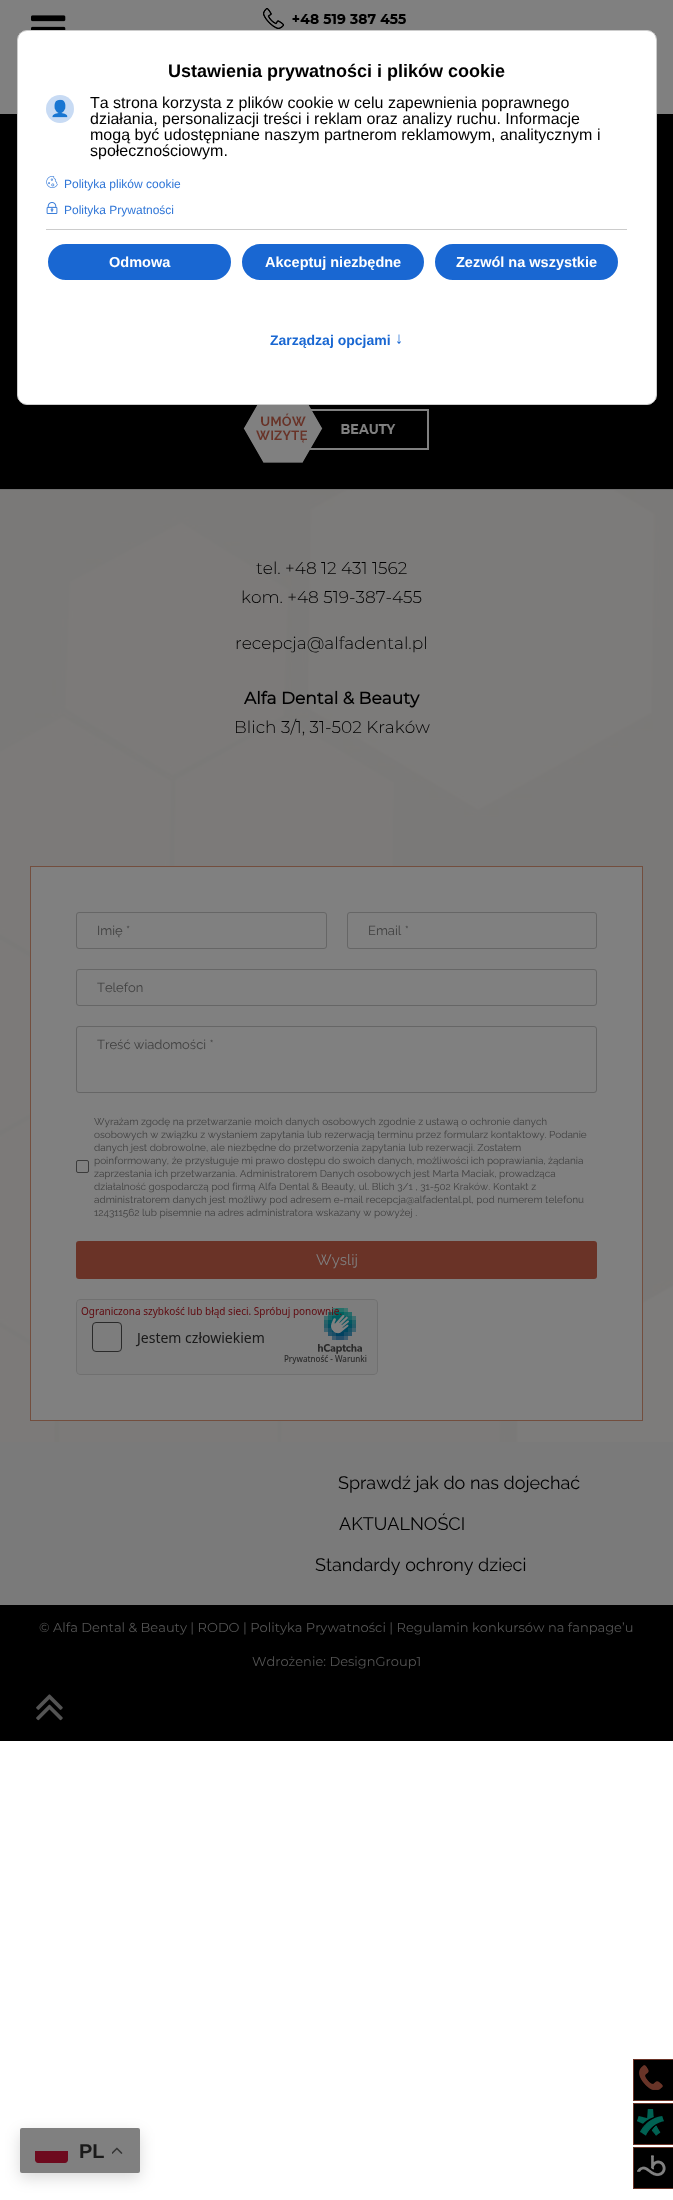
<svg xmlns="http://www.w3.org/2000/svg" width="673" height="2200">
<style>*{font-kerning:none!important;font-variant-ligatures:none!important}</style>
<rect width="100%" height="100%" fill="#fff"/>
<rect y="114" width="673" height="375" fill="#000"/>
<rect width="673" height="114" fill="#808080"/>
<rect x="17.5" y="30.5" width="639" height="374" rx="9.5" fill="#fff" stroke="#ccc"/>
<text x="168" y="77" style="font-family:Liberation Sans;font-size:18px;font-weight:bold;fill:#000">Ustawienia prywatności i plików cookie</text>
<circle cx="60" cy="109" r="14" fill="#c8dbf4"/>
<text x="50" y="114" style="font-family:Noto Color Emoji;font-size:16px;fill:#000">👤</text>
<text x="90" y="108" style="font-family:Liberation Sans;font-size:16px;fill:#000">Ta strona korzysta z plików cookie w celu zapewnienia poprawnego</text>
<text x="90" y="124" style="font-family:Liberation Sans;font-size:16px;fill:#000">działania, personalizacji treści i reklam oraz analizy ruchu. Informacje</text>
<text x="90" y="140" style="font-family:Liberation Sans;font-size:16px;fill:#000">mogą być udostępniane naszym partnerom reklamowym, analitycznym i</text>
<text x="90" y="156" style="font-family:Liberation Sans;font-size:16px;fill:#000">społecznościowym.</text>
<image x="46" y="176" width="12" height="12" href="media/1.png"/>
<text x="64" y="188" style="font-family:Liberation Sans;font-size:12px;fill:#3076d7">Polityka plików cookie</text>
<image x="46" y="202" width="12" height="12" href="media/2.png"/>
<text x="64" y="214" style="font-family:Liberation Sans;font-size:12px;fill:#3076d7">Polityka Prywatności</text>
<rect x="46" y="229" width="581" height="1" fill="#ccc"/>
<rect x="47" y="243" width="185" height="38" rx="19" fill="#1967d2" stroke="#fff" stroke-width="2"/>
<text x="109" y="267" style="font-family:Liberation Sans;font-size:14.5px;font-weight:bold;fill:#fff">Odmowa</text>
<rect x="241" y="243" width="184" height="38" rx="19" fill="#1967d2" stroke="#fff" stroke-width="2"/>
<text x="265" y="267" style="font-family:Liberation Sans;font-size:14.5px;font-weight:bold;fill:#fff">Akceptuj niezbędne</text>
<rect x="434" y="243" width="185" height="38" rx="19" fill="#1967d2" stroke="#fff" stroke-width="2"/>
<text x="456" y="267" style="font-family:Liberation Sans;font-size:14.5px;font-weight:bold;fill:#fff">Zezwól na wszystkie</text>
<text x="270" y="345" style="font-family:Liberation Sans;font-size:14px;font-weight:bold;fill:#1967d2">Zarządzaj opcjami</text>
<text x="403" y="335" transform="rotate(180 403 335)" style="font-family:Liberation Sans;font-size:16px;font-weight:bold;fill:#1967d2">↑</text>
<image x="31" y="15" width="35" height="15" href="media/3.png"/>
<image x="243" y="405" width="186" height="58" href="media/4.png"/>
<image x="0" y="490" width="673" height="952" href="media/5.png"/>
<rect y="489" width="673" height="1" fill="#6e6e6e"/>
<text x="256" y="574" style="font-family:'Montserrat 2';font-size:17px;font-weight:100;fill:#000">tel. +48 12 431 1562</text>
<text x="241" y="603" style="font-family:'Montserrat 2';font-size:17px;font-weight:100;fill:#000">kom. +48 519-387-455</text>
<text x="235" y="649" style="font-family:'Montserrat 2';font-size:17px;font-weight:100;fill:#000">recepcja@alfadental.pl</text>
<text x="244" y="704" style="font-family:Montserrat;font-size:17px;font-weight:bold;fill:#000">Alfa Dental &amp; Beauty</text>
<text x="234" y="733" style="font-family:'Montserrat 2';font-size:17px;font-weight:100;fill:#000">Blich 3/1, 31-502 Kraków</text>
<rect x="30.5" y="866.5" width="612" height="554" fill="#808080" stroke="#734e3e"/>
<rect x="76.5" y="912.5" width="250" height="36" rx="2.5" fill="none" stroke="#666"/>
<text x="97" y="935" style="font-family:Raleway;font-size:13px;font-weight:100;fill:#404040">Imię *</text>
<rect x="347.5" y="912.5" width="249" height="36" rx="2.5" fill="none" stroke="#666"/>
<text x="368" y="935" style="font-family:Raleway;font-size:13px;font-weight:100;fill:#404040">Email *</text>
<rect x="76.5" y="969.5" width="520" height="36" rx="2.5" fill="none" stroke="#666"/>
<text x="97" y="992" style="font-family:Raleway;font-size:13px;font-weight:100;fill:#404040">Telefon</text>
<rect x="76.5" y="1026.5" width="520" height="66" rx="2.5" fill="none" stroke="#666"/>
<text x="97" y="1049" style="font-family:Raleway;font-size:13px;font-weight:100;fill:#404040">Treść wiadomości *</text>
<rect x="76.5" y="1160.5" width="12" height="12" rx="1.5" fill="none" stroke="#3b3b3b"/>
<text x="94" y="1125" style="font-family:Raleway;font-size:10px;font-weight:100;fill:#404040">Wyrażam zgodę na przetwarzanie moich danych osobowych zgodnie z ustawą o ochronie danych</text>
<text x="94" y="1138" style="font-family:Raleway;font-size:10px;font-weight:100;fill:#404040">osobowych w związku z wysłaniem zapytania lub rezerwacją terminu przez formularz kontaktowy.</text>
<text x="549" y="1138" style="font-family:Raleway;font-size:10px;font-weight:100;fill:#404040">Podanie</text>
<text x="94" y="1151" style="font-family:Raleway;font-size:10px;font-weight:100;fill:#404040">danych jest dobrowolne, ale niezbędne do przetworzenia zapytania lub rezerwacji. Zostałem</text>
<text x="94" y="1164" style="font-family:Raleway;font-size:10px;font-weight:100;fill:#404040">poinformowany, że przysługuje mi prawo dostępu do swoich danych, możliwości ich poprawiania,</text>
<text x="548" y="1164" style="font-family:Raleway;font-size:10px;font-weight:100;fill:#404040">żądania</text>
<text x="94" y="1177" style="font-family:Raleway;font-size:10px;font-weight:100;fill:#404040">zaprzestania ich przetwarzania. Administratorem Danych osobowych jest Marta Maciak, prowadząca</text>
<text x="94" y="1190" style="font-family:Raleway;font-size:10px;font-weight:100;fill:#404040">działalność gospodarczą pod firmą Alfa Dental &amp; Beauty, ul. Blich 3/1 , 31-502 Kraków.</text>
<text x="493" y="1190" style="font-family:Raleway;font-size:10px;font-weight:100;fill:#404040">Kontakt z</text>
<text x="94" y="1203" style="font-family:Raleway;font-size:10px;font-weight:100;fill:#404040">administratorem danych jest możliwy pod adresem e-mail recepcja@alfadental.pl, pod numerem telefonu</text>
<text x="94" y="1216" style="font-family:Raleway;font-size:10px;font-weight:100;fill:#404040">124311562 lub pisemnie na adres administratora wskazany w powyżej .</text>
<rect x="76" y="1241" width="521" height="38" rx="3" fill="#6a3327"/>
<text x="316" y="1265" style="font-family:Raleway;font-size:15px;font-weight:100;fill:#808080">Wyslij</text>
<image x="76" y="1299" width="302" height="76" href="media/6.png"/>
<rect y="1442" width="673" height="163" fill="#7a7a7a"/>
<text x="338" y="1489" style="font-family:Raleway;font-size:18px;font-weight:100;fill:#000">Sprawdź jak do nas dojechać</text>
<text x="339" y="1530" style="font-family:Raleway;font-size:18px;font-weight:100;fill:#000">AKTUALNOŚCI</text>
<text x="315" y="1571" style="font-family:Raleway;font-size:18px;font-weight:100;fill:#000">Standardy ochrony dzieci</text>
<rect y="1605" width="673" height="136" fill="#000"/>
<text x="39" y="1632" style="font-family:Montserrat;font-size:13px;font-weight:100;fill:#545454">© Alfa Dental &amp; Beauty | RODO | Polityka Prywatności | Regulamin konkursów</text>
<text x="548" y="1632" style="font-family:Montserrat;font-size:13px;font-weight:100;fill:#545454">na fanpage’u</text>
<text x="252" y="1666" style="font-family:Montserrat;font-size:13px;font-weight:100;fill:#545454">Wdrożenie: DesignGroup1</text>
<image x="36" y="1694" width="27" height="27" href="media/7.png"/>
<rect x="633.5" y="2059.5" width="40" height="41" fill="#000" stroke="#6a3327"/>
<image x="639" y="2065" width="24" height="25" href="media/8.png"/>
<rect x="633.5" y="2103.5" width="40" height="41" fill="#000" stroke="#6a3327"/>
<image x="637" y="2109" width="27" height="27" href="media/9.png"/>
<rect x="633.5" y="2147.5" width="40" height="41" fill="#000" stroke="#6a3327"/>
<image x="637" y="2155" width="29" height="22" href="media/10.png"/>
<image x="263" y="8" width="143" height="21" href="media/11.png"/>
<rect x="20" y="2133" width="120" height="45" rx="2" fill="#00000026" filter="blur(7.5px)"/>
<rect x="20" y="2128" width="120" height="45" rx="2" fill="#808080"/>
<path d="M35 2151h33v9c0 1.5-1.5 3-3 3h-27c-1.5 0-3-1.5-3-3z" fill="#6e0a1e"/>
<text x="79" y="2158" style="font-family:Liberation Sans;font-size:20px;font-weight:bold;fill:#1a1a1a">PL</text>
<image x="112" y="2147" width="11" height="7" href="media/12.png"/>
</svg>
